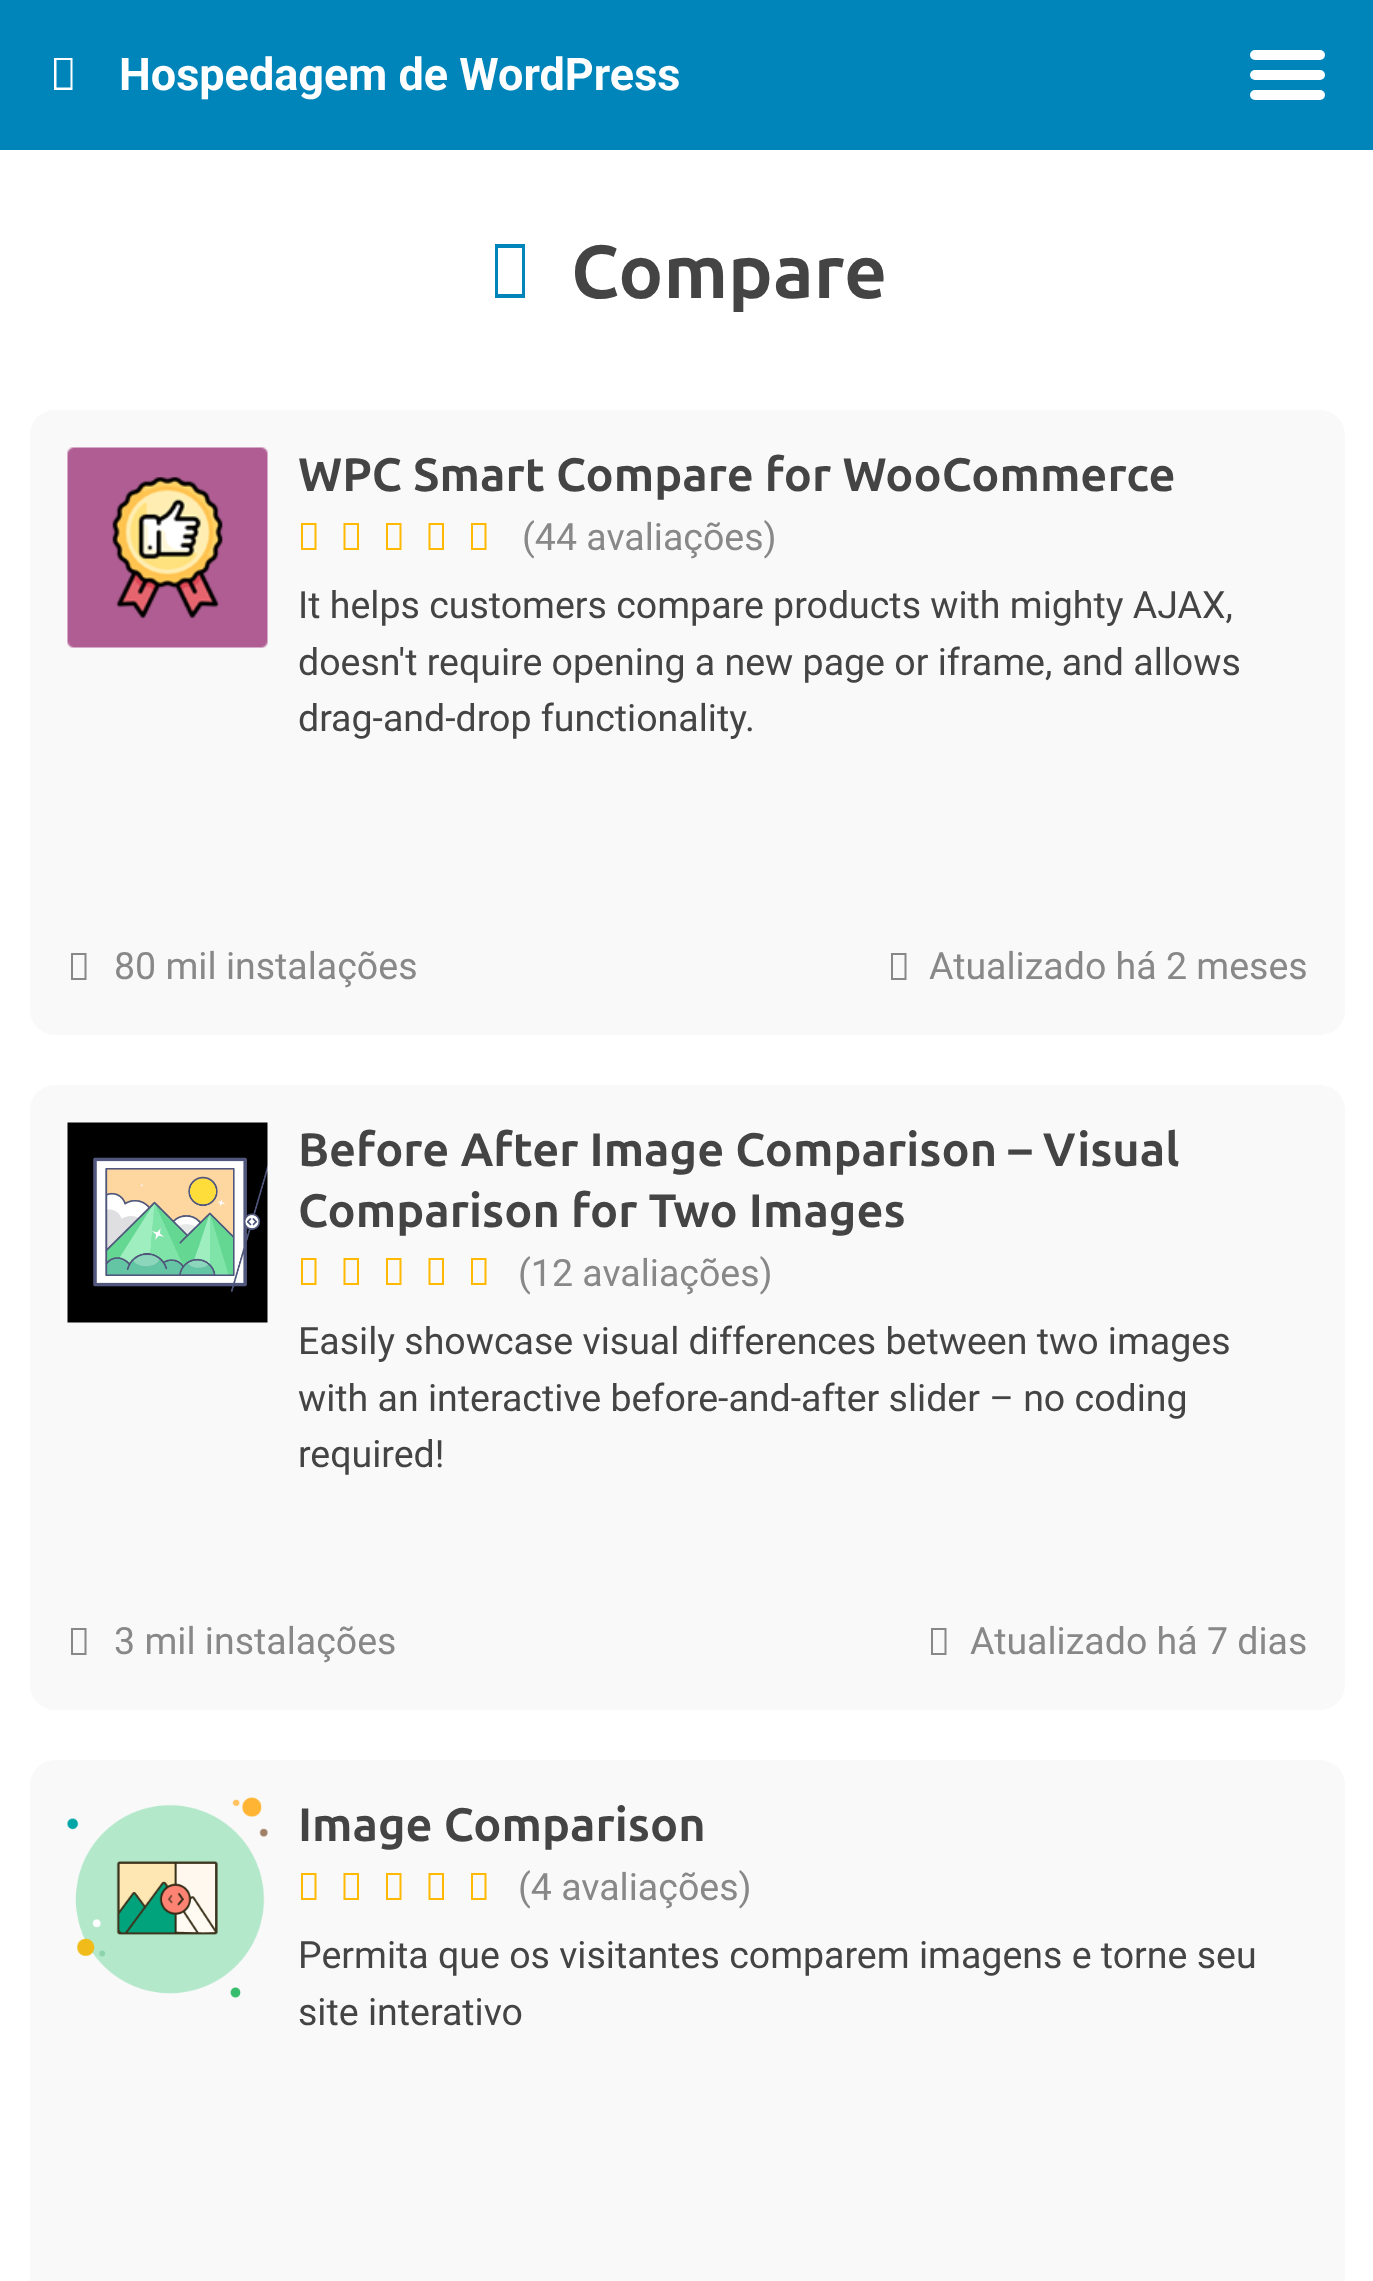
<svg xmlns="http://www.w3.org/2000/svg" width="1373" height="2281">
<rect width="100%" height="100%" fill="#fff"/>
<rect width="1373" height="150" fill="#0085ba"/>
<path d="M54 90v-32h18.5v32zm2.5-2.5h14v-27.5h-14z" fill="#fff"/>
<text x="119" y="90" style="font-family:Roboto;font-size:45px;font-weight:bold;fill:#fff">Hospedagem de WordPress</text>
<rect x="1250" y="70" width="75" height="10" rx="5" fill="#fff"/>
<rect x="1250" y="50" width="75" height="10" rx="5" fill="#fff"/>
<rect x="1250" y="90" width="75" height="10" rx="5" fill="#fff"/>
<path d="M495 298v-54h30v54zm3-4h24v-46h-24z" fill="#0085ba"/>
<text x="571" y="298" style="font-family:Ubuntu;font-size:75px;font-weight:bold;fill:#444">Compare</text>
<rect x="30" y="410" width="1315" height="625" rx="25" fill="#f9f9f9"/>
<image x="67" y="447" width="201" height="201" href="media/1.png"/>
<text x="298" y="491" style="font-family:Ubuntu;font-size:46.9px;font-weight:bold;fill:#444">WPC Smart Compare for WooCommerce</text>
<path d="M301 550v-27h15.5v27zm2-2h11.5v-23h-11.5zm40.5 2v-27h15.5v27zm2-2h11.5v-23h-11.5z" fill="#ffb900"/>
<path d="M386 550v-27h15.5v27zm2-2h11.5v-23h-11.5zm40.5 2v-27h15.5v27zm2-2h11.5v-23h-11.5z" fill="#ffb900"/>
<path d="M471 550v-27h15.5v27zm2-2h11.5v-23h-11.5z" fill="#ffb900"/>
<text x="522" y="550" style="font-family:Roboto;font-size:37.5px;fill:#888">(44 avaliações)</text>
<text x="298" y="618" style="font-family:Roboto;font-size:37.5px;fill:#444">It helps customers compare products with mighty AJAX,</text>
<text x="298" y="675" style="font-family:Roboto;font-size:37.5px;fill:#444">doesn't require opening a new page or iframe, and allows</text>
<text x="298" y="731" style="font-family:Roboto;font-size:37.5px;fill:#444">drag-and-drop functionality.</text>
<path d="M71 980v-27h15.5v27zm2-2h11.5v-23h-11.5z" fill="#888"/>
<text x="114" y="979" style="font-family:Roboto;font-size:37.5px;fill:#888">80 mil instalações</text>
<path d="M891 980v-27h15.5v27zm2-2h11.5v-23h-11.5z" fill="#888"/>
<text x="929" y="979" style="font-family:Roboto;font-size:37.5px;fill:#888">Atualizado há 2 meses</text>
<rect x="30" y="1085" width="1315" height="625" rx="25" fill="#f9f9f9"/>
<image x="67" y="1122" width="201" height="201" href="media/2.png"/>
<text x="298" y="1166" style="font-family:Ubuntu;font-size:46.9px;font-weight:bold;fill:#444">Before After Image Comparison – Visual</text>
<text x="298" y="1227" style="font-family:Ubuntu;font-size:46.9px;font-weight:bold;fill:#444">Comparison for Two Images</text>
<path d="M301 1285v-27h15.5v27zm2-2h11.5v-23h-11.5zm40.5 2v-27h15.5v27zm2-2h11.5v-23h-11.5z" fill="#ffb900"/>
<path d="M386 1285v-27h15.5v27zm2-2h11.5v-23h-11.5zm40.5 2v-27h15.5v27zm2-2h11.5v-23h-11.5z" fill="#ffb900"/>
<path d="M471 1285v-27h15.5v27zm2-2h11.5v-23h-11.5z" fill="#ffb900"/>
<text x="518" y="1286" style="font-family:Roboto;font-size:37.5px;fill:#888">(12 avaliações)</text>
<text x="298" y="1354" style="font-family:Roboto;font-size:37.5px;fill:#444">Easily showcase visual differences between two images</text>
<text x="298" y="1411" style="font-family:Roboto;font-size:37.5px;fill:#444">with an interactive before-and-after slider – no coding</text>
<text x="298" y="1467" style="font-family:Roboto;font-size:37.5px;fill:#444">required!</text>
<path d="M71 1655v-27h15.5v27zm2-2h11.5v-23h-11.5z" fill="#888"/>
<text x="114" y="1654" style="font-family:Roboto;font-size:37.5px;fill:#888">3 mil instalações</text>
<path d="M931 1655v-27h15.5v27zm2-2h11.5v-23h-11.5z" fill="#888"/>
<text x="970" y="1654" style="font-family:Roboto;font-size:37.5px;fill:#888">Atualizado há 7 dias</text>
<rect x="30" y="1760" width="1315" height="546" rx="25" fill="#f9f9f9"/>
<image x="67" y="1797" width="201" height="201" href="media/3.png"/>
<text x="298" y="1841" style="font-family:Ubuntu;font-size:46.9px;font-weight:bold;fill:#444">Image Comparison</text>
<path d="M301 1900v-27h15.5v27zm2-2h11.5v-23h-11.5zm40.5 2v-27h15.5v27zm2-2h11.5v-23h-11.5z" fill="#ffb900"/>
<path d="M386 1900v-27h15.5v27zm2-2h11.5v-23h-11.5zm40.5 2v-27h15.5v27zm2-2h11.5v-23h-11.5z" fill="#ffb900"/>
<path d="M471 1900v-27h15.5v27zm2-2h11.5v-23h-11.5z" fill="#ffb900"/>
<text x="518" y="1900" style="font-family:Roboto;font-size:37.5px;fill:#888">(4 avaliações)</text>
<text x="298" y="1968" style="font-family:Roboto;font-size:37.5px;fill:#444">Permita que os visitantes comparem imagens e torne seu</text>
<text x="298" y="2025" style="font-family:Roboto;font-size:37.5px;fill:#444">site interativo</text>
</svg>
